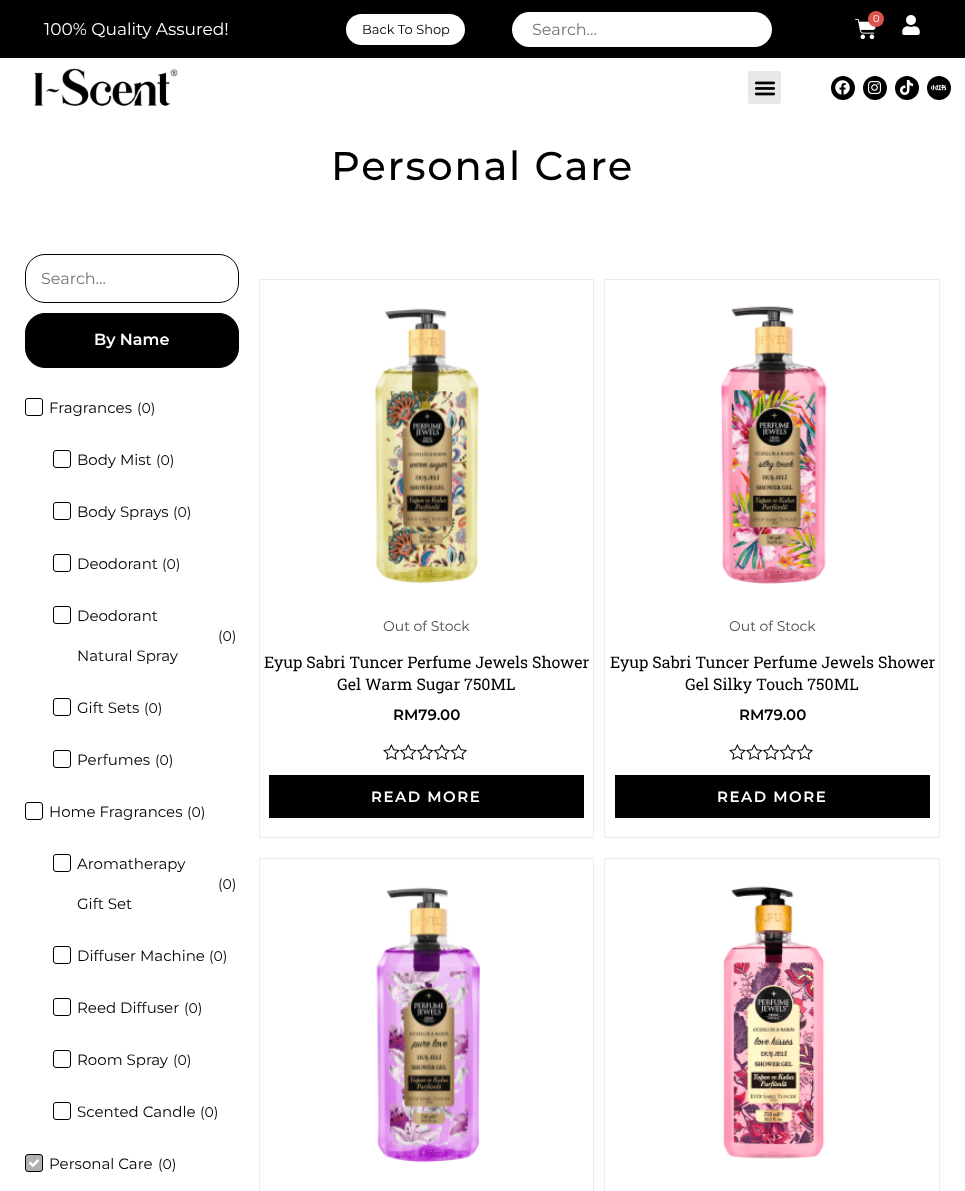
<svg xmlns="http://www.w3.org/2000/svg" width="965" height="1191">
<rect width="100%" height="100%" fill="#fff"/>
<rect width="965" height="58" fill="#000"/>
<image x="855" y="18" width="21" height="22" href="media/1.png"/>
<circle cx="876" cy="19" r="8" fill="#d9534f"/>
<text x="873" y="22" style="font-family:Montserrat;font-size:10px;fill:#fff">0</text>
<image x="902" y="15" width="18" height="20" href="media/2.png"/>
<text x="44" y="35" style="font-family:Montserrat;font-size:17px;fill:#fff">100% Quality Assured!</text>
<rect x="346" y="14" width="119" height="31" rx="15.5" fill="#fff"/>
<text x="362" y="34" style="font-family:Montserrat;font-size:13px;fill:#000">Back To Shop</text>
<rect x="512" y="12" width="260" height="35" rx="17.5" fill="#fff"/>
<text x="532" y="35" style="font-family:Montserrat;font-size:16px;fill:#757575">Search...</text>
<image x="34" y="68" width="144" height="38" href="media/3.png"/>
<rect x="748" y="71" width="33" height="33" rx="3" fill="#e8e8e8"/>
<image x="754" y="81" width="22" height="15" href="media/4.png"/>
<circle cx="843" cy="88" r="12" fill="#000"/>
<image x="835" y="80" width="15" height="15" href="media/5.png"/>
<circle cx="875" cy="88" r="12" fill="#000"/>
<image x="868" y="81" width="14" height="13" href="media/6.png"/>
<circle cx="907" cy="88" r="12" fill="#000"/>
<image x="900" y="80" width="14" height="15" href="media/7.png"/>
<circle cx="939" cy="88" r="12" fill="#000"/>
<image x="931" y="84" width="15" height="7" href="media/8.png"/>
<text x="331" y="180" style="font-family:Montserrat;font-size:40px;font-weight:500;letter-spacing:1.75px;fill:#000">Personal Care</text>
<rect x="25.5" y="254.5" width="213" height="48" rx="19.5" fill="none" stroke="#000"/>
<text x="41" y="284" style="font-family:Montserrat;font-size:16px;fill:#757575">Search...</text>
<rect x="25.5" y="313.5" width="213" height="54" rx="19.5" fill="#000" stroke="#000"/>
<text x="94" y="345" style="font-family:Montserrat;font-size:16px;font-weight:600;fill:#fff">By Name</text>
<rect x="25.5" y="398.5" width="17" height="17" rx="2.5" fill="none" stroke="#000"/>
<text x="49" y="413" style="font-family:Montserrat;font-size:15px;fill:#000">Fragrances</text>
<text x="137" y="413" style="font-family:Montserrat;font-size:14px;fill:#000">(0)</text>
<rect x="53.5" y="450.5" width="17" height="17" rx="2.5" fill="none" stroke="#000"/>
<text x="77" y="465" style="font-family:Montserrat;font-size:15px;fill:#000">Body Mist</text>
<text x="156" y="465" style="font-family:Montserrat;font-size:14px;fill:#000">(0)</text>
<rect x="53.5" y="502.5" width="17" height="17" rx="2.5" fill="none" stroke="#000"/>
<text x="77" y="517" style="font-family:Montserrat;font-size:15px;fill:#000">Body Sprays</text>
<text x="173" y="517" style="font-family:Montserrat;font-size:14px;fill:#000">(0)</text>
<rect x="53.5" y="554.5" width="17" height="17" rx="2.5" fill="none" stroke="#000"/>
<text x="77" y="569" style="font-family:Montserrat;font-size:15px;fill:#000">Deodorant</text>
<text x="162" y="569" style="font-family:Montserrat;font-size:14px;fill:#000">(0)</text>
<rect x="53.5" y="606.5" width="17" height="17" rx="2.5" fill="none" stroke="#000"/>
<text x="77" y="621" style="font-family:Montserrat;font-size:15px;fill:#000">Deodorant</text>
<text x="77" y="661" style="font-family:Montserrat;font-size:15px;fill:#000">Natural Spray</text>
<text x="218" y="641" style="font-family:Montserrat;font-size:14px;fill:#000">(0)</text>
<rect x="53.5" y="698.5" width="17" height="17" rx="2.5" fill="none" stroke="#000"/>
<text x="77" y="713" style="font-family:Montserrat;font-size:15px;fill:#000">Gift Sets</text>
<text x="144" y="713" style="font-family:Montserrat;font-size:14px;fill:#000">(0)</text>
<rect x="53.5" y="750.5" width="17" height="17" rx="2.5" fill="none" stroke="#000"/>
<text x="77" y="765" style="font-family:Montserrat;font-size:15px;fill:#000">Perfumes</text>
<text x="155" y="765" style="font-family:Montserrat;font-size:14px;fill:#000">(0)</text>
<rect x="25.5" y="802.5" width="17" height="17" rx="2.5" fill="none" stroke="#000"/>
<text x="49" y="817" style="font-family:Montserrat;font-size:15px;fill:#000">Home Fragrances</text>
<text x="187" y="817" style="font-family:Montserrat;font-size:14px;fill:#000">(0)</text>
<rect x="53.5" y="854.5" width="17" height="17" rx="2.5" fill="none" stroke="#000"/>
<text x="77" y="869" style="font-family:Montserrat;font-size:15px;fill:#000">Aromatherapy</text>
<text x="77" y="909" style="font-family:Montserrat;font-size:15px;fill:#000">Gift Set</text>
<text x="218" y="889" style="font-family:Montserrat;font-size:14px;fill:#000">(0)</text>
<rect x="53.5" y="946.5" width="17" height="17" rx="2.5" fill="none" stroke="#000"/>
<text x="77" y="961" style="font-family:Montserrat;font-size:15px;fill:#000">Diffuser Machine</text>
<text x="209" y="961" style="font-family:Montserrat;font-size:14px;fill:#000">(0)</text>
<rect x="53.5" y="998.5" width="17" height="17" rx="2.5" fill="none" stroke="#000"/>
<text x="77" y="1013" style="font-family:Montserrat;font-size:15px;fill:#000">Reed Diffuser</text>
<text x="184" y="1013" style="font-family:Montserrat;font-size:14px;fill:#000">(0)</text>
<rect x="53.5" y="1050.5" width="17" height="17" rx="2.5" fill="none" stroke="#000"/>
<text x="77" y="1065" style="font-family:Montserrat;font-size:15px;fill:#000">Room Spray</text>
<text x="173" y="1065" style="font-family:Montserrat;font-size:14px;fill:#000">(0)</text>
<rect x="53.5" y="1102.5" width="17" height="17" rx="2.5" fill="none" stroke="#000"/>
<text x="77" y="1117" style="font-family:Montserrat;font-size:15px;fill:#000">Scented Candle</text>
<text x="200" y="1117" style="font-family:Montserrat;font-size:14px;fill:#000">(0)</text>
<rect x="25.5" y="1154.5" width="17" height="17" rx="2.5" fill="#b1b1b1" stroke="#000"/>
<image x="28" y="1159" width="12" height="9" href="media/9.png"/>
<text x="49" y="1169" style="font-family:Montserrat;font-size:15px;fill:#000">Personal Care</text>
<text x="158" y="1169" style="font-family:Montserrat;font-size:14px;fill:#000">(0)</text>
<rect x="259.5" y="279.5" width="334" height="558" fill="none" stroke="#ececec"/>
<image x="375" y="308" width="104" height="276" href="media/10.png"/>
<text x="383" y="631" style="font-family:Montserrat;font-size:14px;fill:#4a4a4a">Out of Stock</text>
<text x="264" y="668" style="font-family:Roboto Slab;font-size:16px;fill:#000">Eyup Sabri Tuncer Perfume Jewels Shower</text>
<text x="337" y="690" style="font-family:Roboto Slab;font-size:16px;fill:#000">Gel Warm Sugar 750ML</text>
<text x="393" y="720" style="font-family:Montserrat;font-size:15px;font-weight:600;fill:#000">RM79.00</text>
<image x="383" y="744" width="84" height="16" href="media/11.png"/>
<rect x="269" y="775" width="315" height="43" fill="#000"/>
<text x="371" y="802" style="font-family:Montserrat;font-size:15px;font-weight:600;letter-spacing:1.5px;fill:#fff">READ MORE</text>
<rect x="604.5" y="279.5" width="335" height="558" fill="none" stroke="#ececec"/>
<image x="720" y="306" width="107" height="278" href="media/12.png"/>
<text x="729" y="631" style="font-family:Montserrat;font-size:14px;fill:#4a4a4a">Out of Stock</text>
<text x="610" y="668" style="font-family:Roboto Slab;font-size:16px;fill:#000">Eyup Sabri Tuncer Perfume Jewels Shower</text>
<text x="685" y="690" style="font-family:Roboto Slab;font-size:16px;fill:#000">Gel Silky Touch 750ML</text>
<text x="739" y="720" style="font-family:Montserrat;font-size:15px;font-weight:600;fill:#000">RM79.00</text>
<image x="729" y="744" width="84" height="16" href="media/11.png"/>
<rect x="615" y="775" width="315" height="43" fill="#000"/>
<text x="717" y="802" style="font-family:Montserrat;font-size:15px;font-weight:600;letter-spacing:1.5px;fill:#fff">READ MORE</text>
<rect x="259.5" y="858.5" width="334" height="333" fill="none" stroke="#ececec"/>
<image x="376" y="887" width="104" height="276" href="media/13.png"/>
<rect x="604.5" y="858.5" width="335" height="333" fill="none" stroke="#ececec"/>
<image x="723" y="886" width="102" height="273" href="media/14.png"/>
</svg>
